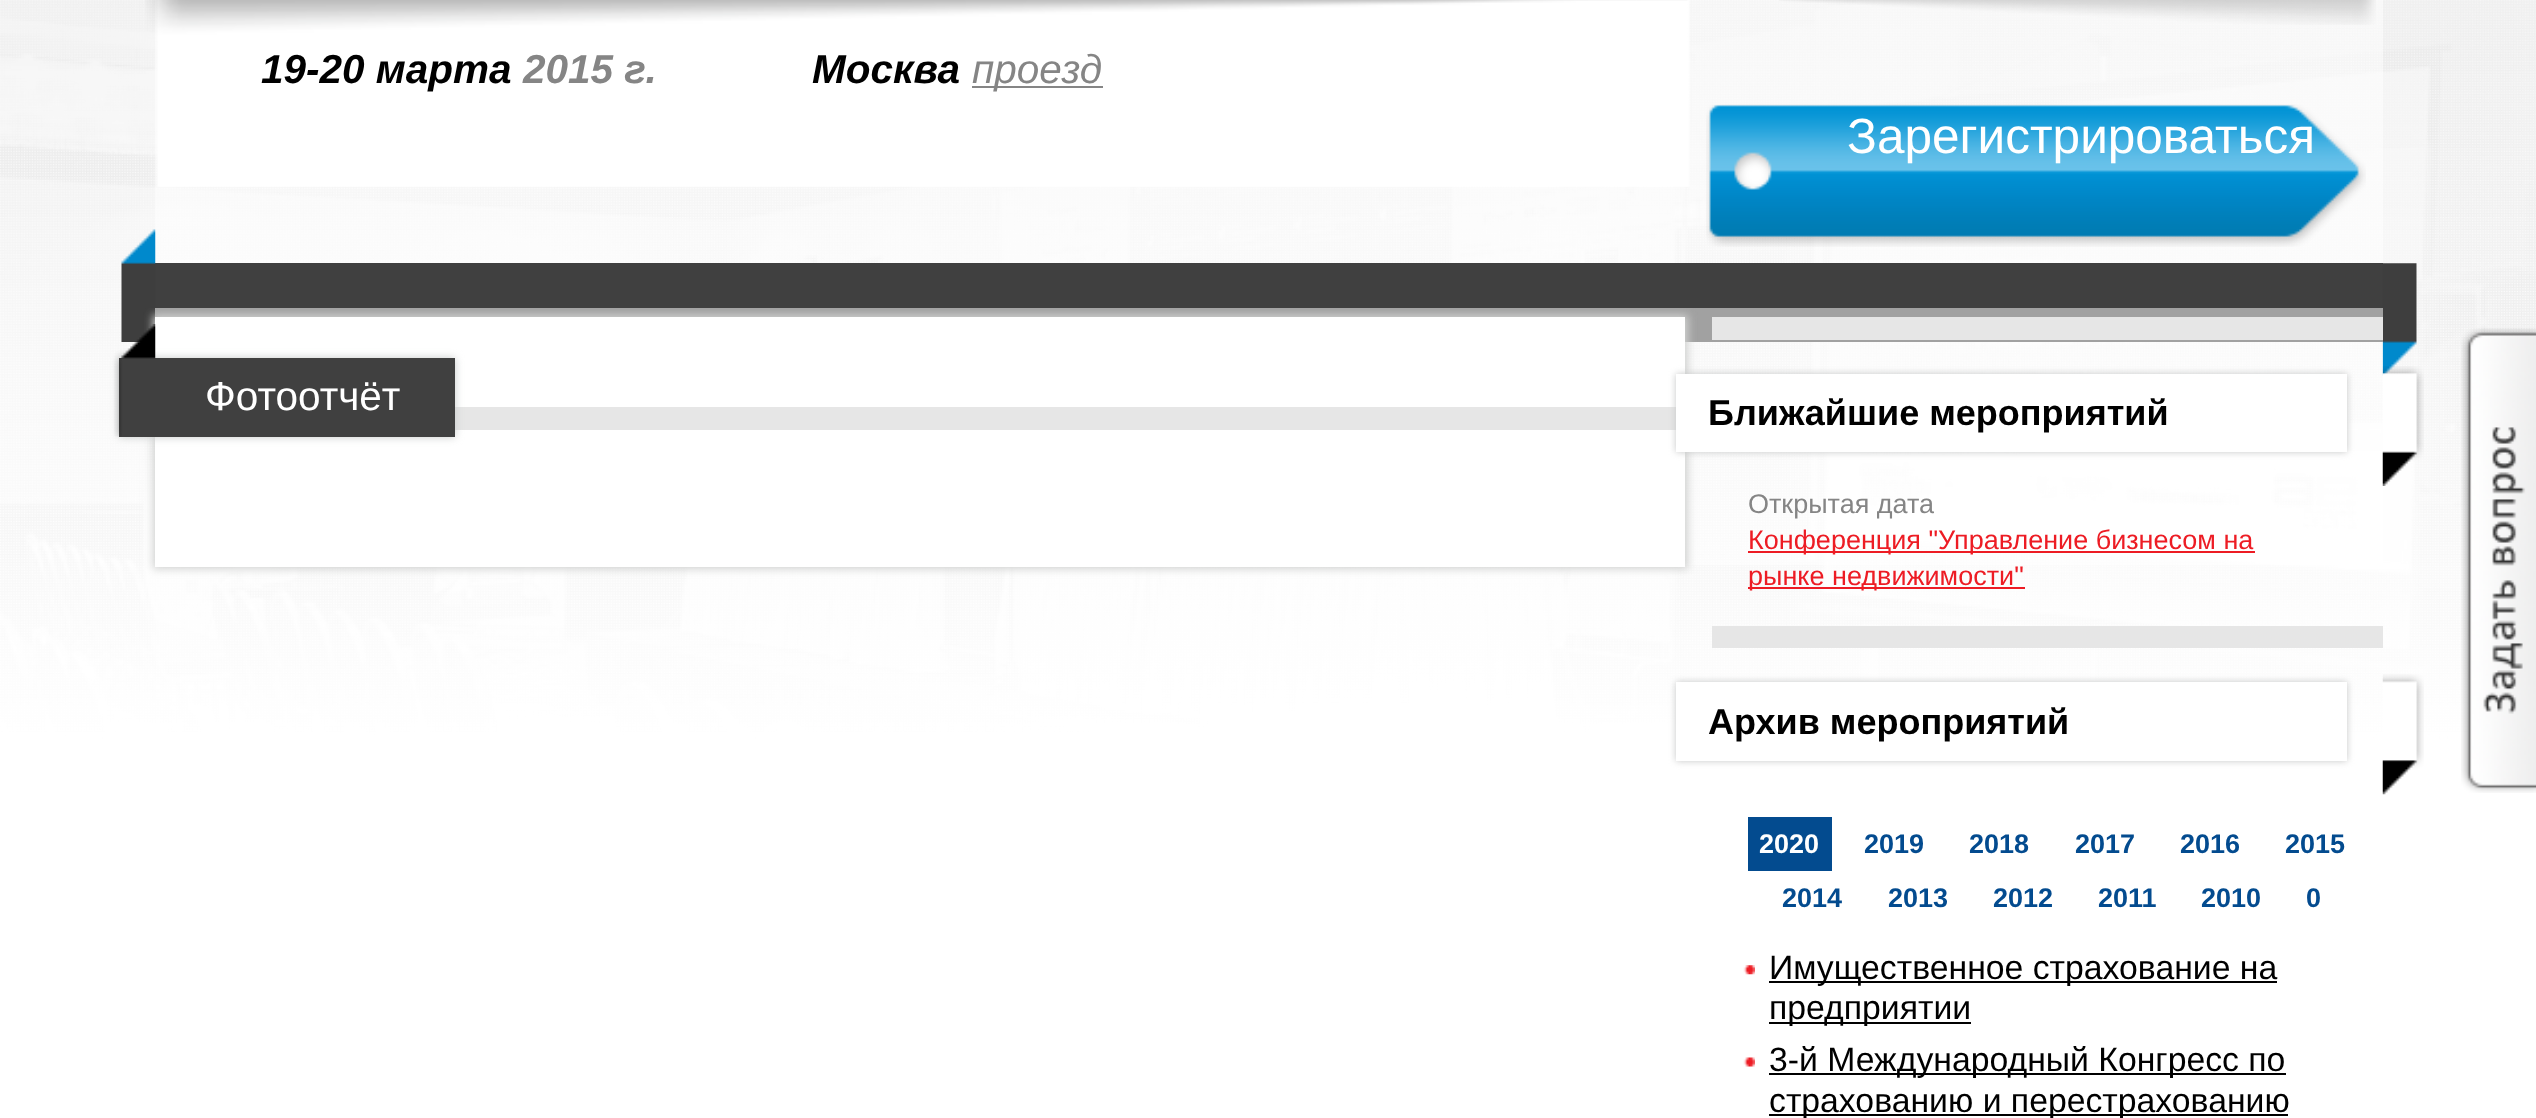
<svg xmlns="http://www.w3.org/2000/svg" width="2536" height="1118">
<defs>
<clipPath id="clip1"><rect x="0" y="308" width="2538" height="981"/></clipPath>
</defs>
<rect width="100%" height="100%" fill="#fff"/>
<image x="0" y="0" width="2536" height="746" href="media/1.png"/>
<image x="0" y="0" width="2536" height="746" href="media/2.png"/>
<image x="0" y="0" width="2536" height="1118" href="media/3.png"/>
<rect x="155" width="2228" height="263" fill="#ffffff82"/>
<image x="145" y="0" width="1545" height="187" href="media/4.png"/>
<text x="261" y="83" style="font-family:Liberation Sans;font-size:40.5px;font-weight:bold;font-style:italic;fill:#000">19-20 марта</text>
<text x="523" y="83" style="font-family:Liberation Sans;font-size:40.5px;font-weight:bold;font-style:italic;fill:#858585">2015 г.</text>
<text x="812" y="83" style="font-family:Liberation Sans;font-size:40.5px;font-weight:bold;font-style:italic;fill:#000">Москва</text>
<rect x="972" y="86" width="131" height="2" fill="#858585"/>
<text x="972" y="83" style="font-family:Liberation Sans;font-size:40.5px;font-style:italic;fill:#858585">проезд</text>
<image x="1779" y="0" width="597" height="25" href="media/5.png"/>
<image x="1706" y="104" width="660" height="143" href="media/6.png"/>
<text x="1847" y="153" style="font-family:Liberation Sans;font-size:49.5px;fill:#fff">Зарегистрироваться</text>
<rect x="155" y="263" width="2228" height="79" fill="#404040"/>
<image x="121" y="229" width="35" height="113" href="media/7.png"/>
<image x="2382" y="263" width="35" height="113" href="media/8.png"/>
<rect x="155" y="308" width="2228" height="257" fill="#ffffff82"/>
<g clip-path="url(#clip1)">
<rect x="153" y="315" width="1535" height="254" fill="#d1d2d1" filter="blur(4.5px)"/>
</g>
<rect x="155" y="317" width="1530" height="250" fill="#fff"/>
<rect x="455" y="407" width="1221" height="23" fill="#e6e6e6"/>
<rect x="119" y="358" width="336" height="79" fill="#c7cac9" filter="blur(4.5px)"/>
<rect x="119" y="358" width="336" height="79" fill="#404040"/>
<image x="114" y="324" width="42" height="113" href="media/9.png"/>
<text x="205" y="410" style="font-family:Liberation Sans;font-size:40.5px;fill:#fff">Фотоотчёт</text>
<rect x="1712" y="317" width="671" height="23" fill="#e6e6e6"/>
<rect x="1676" y="374" width="671" height="78" fill="#c6c7c7" filter="blur(3.5px)"/>
<rect x="1676" y="374" width="671" height="78" fill="#fff"/>
<text x="1708" y="425" style="font-family:Liberation Sans;font-size:36px;font-weight:bold;fill:#000">Ближайшие мероприятий</text>
<image x="2382" y="366" width="42" height="120" href="media/10.png"/>
<text x="1748" y="513" style="font-family:Liberation Sans;font-size:27px;fill:#858585">Открытая дата</text>
<rect x="1748" y="551" width="507" height="2" fill="#ed1c24"/>
<text x="1748" y="549" style="font-family:Liberation Sans;font-size:27px;fill:#ed1c24">Конференция "Управление бизнесом на</text>
<rect x="1748" y="587" width="277" height="2" fill="#ed1c24"/>
<text x="1748" y="585" style="font-family:Liberation Sans;font-size:27px;fill:#ed1c24">рынке недвижимости"</text>
<rect x="1712" y="626" width="671" height="22" fill="#e6e6e6"/>
<rect x="1676" y="682" width="671" height="79" fill="#c6c7c7" filter="blur(3.5px)"/>
<rect x="1676" y="682" width="671" height="79" fill="#fff"/>
<text x="1708" y="734" style="font-family:Liberation Sans;font-size:36px;font-weight:bold;fill:#000">Архив мероприятий</text>
<image x="2382" y="674" width="42" height="121" href="media/11.png"/>
<rect x="1748" y="817" width="84" height="54" fill="#034b8f"/>
<text x="1759" y="853" style="font-family:Liberation Sans;font-size:27px;font-weight:bold;fill:#fff">2020</text>
<text x="1864" y="853" style="font-family:Liberation Sans;font-size:27px;font-weight:bold;fill:#034b8f">2019</text>
<text x="1969" y="853" style="font-family:Liberation Sans;font-size:27px;font-weight:bold;fill:#034b8f">2018</text>
<text x="2075" y="853" style="font-family:Liberation Sans;font-size:27px;font-weight:bold;fill:#034b8f">2017</text>
<text x="2180" y="853" style="font-family:Liberation Sans;font-size:27px;font-weight:bold;fill:#034b8f">2016</text>
<text x="2285" y="853" style="font-family:Liberation Sans;font-size:27px;font-weight:bold;fill:#034b8f">2015</text>
<text x="1782" y="907" style="font-family:Liberation Sans;font-size:27px;font-weight:bold;fill:#034b8f">2014</text>
<text x="1888" y="907" style="font-family:Liberation Sans;font-size:27px;font-weight:bold;fill:#034b8f">2013</text>
<text x="1993" y="907" style="font-family:Liberation Sans;font-size:27px;font-weight:bold;fill:#034b8f">2012</text>
<text x="2098" y="907" style="font-family:Liberation Sans;font-size:27px;font-weight:bold;fill:#034b8f">2011</text>
<text x="2201" y="907" style="font-family:Liberation Sans;font-size:27px;font-weight:bold;fill:#034b8f">2010</text>
<text x="2306" y="907" style="font-family:Liberation Sans;font-size:27px;font-weight:bold;fill:#034b8f">0</text>
<image x="1743" y="965" width="12" height="10" href="media/12.png"/>
<rect x="1769" y="981" width="508" height="2" fill="#000"/>
<text x="1769" y="979" style="font-family:Liberation Sans;font-size:33.75px;fill:#000">Имущественное страхование на</text>
<rect x="1769" y="1022" width="202" height="2" fill="#000"/>
<text x="1769" y="1019" style="font-family:Liberation Sans;font-size:33.75px;fill:#000">предприятии</text>
<image x="1743" y="1057" width="12" height="10" href="media/13.png"/>
<rect x="1769" y="1073" width="517" height="2" fill="#000"/>
<text x="1769" y="1071" style="font-family:Liberation Sans;font-size:33.75px;fill:#000">3-й Международный Конгресс по</text>
<rect x="1769" y="1114" width="519" height="2" fill="#000"/>
<text x="1769" y="1112" style="font-family:Liberation Sans;font-size:33.75px;fill:#000">страхованию и перестрахованию</text>
<image x="2461" y="328" width="75" height="465" href="media/14.png"/>
</svg>
